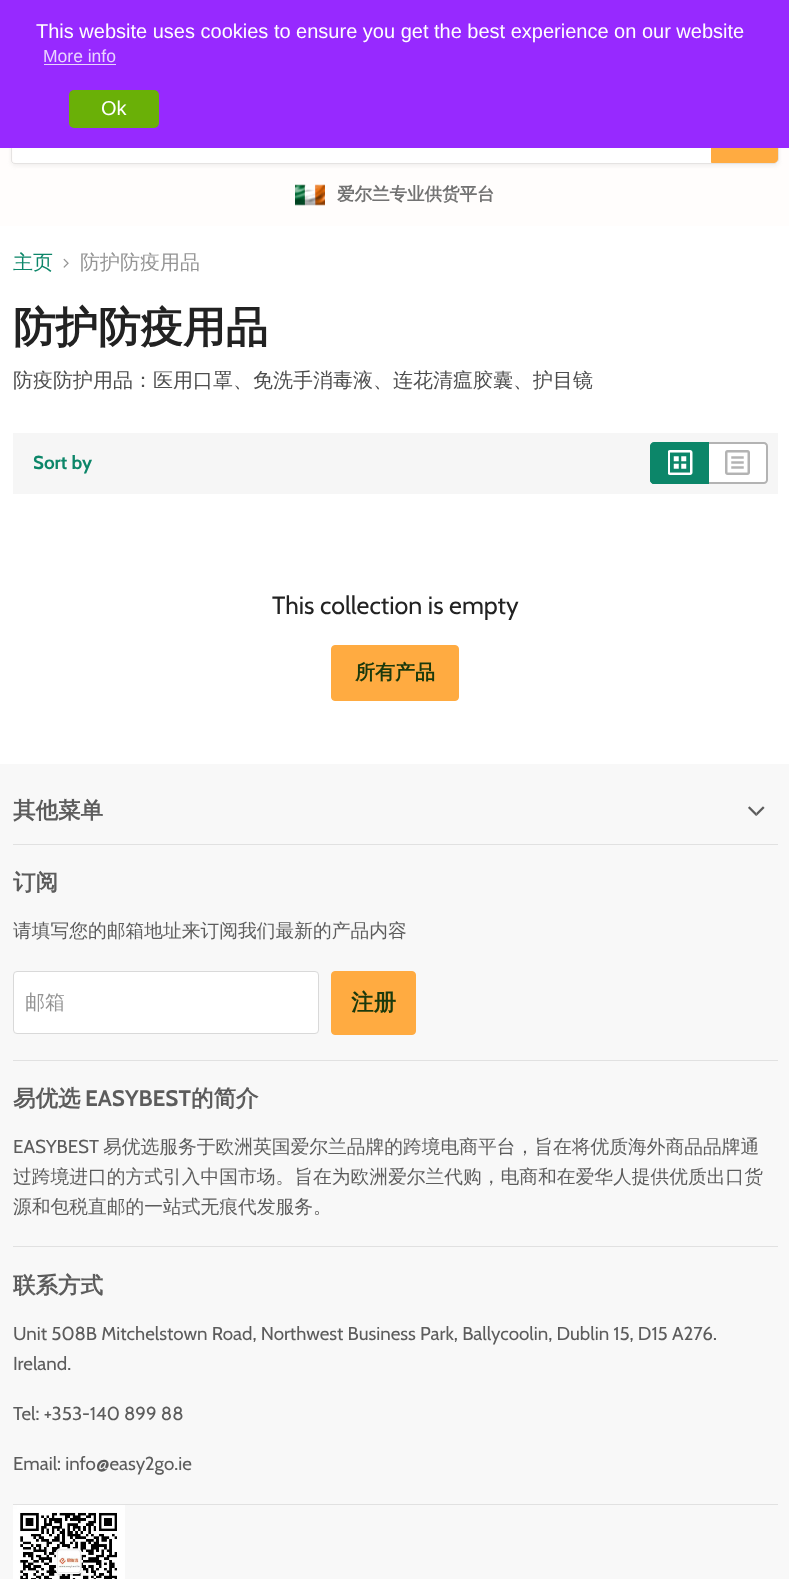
<svg xmlns="http://www.w3.org/2000/svg" width="789" height="1579">
<defs>
<clipPath id="clip1"><path d="M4 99h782v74h-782zm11 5h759c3 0 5 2 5 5v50c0 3-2 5-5 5h-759c-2 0-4-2-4-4v-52c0-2 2-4 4-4z" clip-rule="evenodd"/></clipPath>
</defs>
<rect width="100%" height="100%" fill="#fff"/>
<rect y="148" width="789" height="78" fill="#fffdfc"/>
<g clip-path="url(#clip1)">
<rect x="11" y="106" width="768" height="60" rx="5" fill="#7f7f7f1c" filter="blur(2px)"/>
</g>
<path d="M15 104.5h759c2.5 0 4.5 2 4.5 4.5v50c0 2.5-2 4.5-4.5 4.5h-759c-2 0-3.5-1.5-3.5-3.5v-52c0-2 1.5-3.5 3.5-3.5z" fill="none" stroke="#7f7f7f33"/>
<path d="M17 105h694v58h-694c-2 0-4-2-4-4v-50c0-2 2-4 4-4z" fill="#fff"/>
<path d="M711.5 105.5h62.5c2 0 3.5 1.5 3.5 3.5v50c0 2-1.5 3.5-3.5 3.5h-62.5z" fill="#ffab41" stroke="#ffab41"/>
<rect width="789" height="148" fill="#9729ff"/>
<text x="36" y="38" style="font-family:Liberation Sans;font-size:20px;fill:#fff">This website uses cookies to ensure you get the best experience on our website</text>
<text x="43" y="62" style="font-family:Liberation Sans;font-size:17.5px;fill:#ead4ff">More info</text>
<rect x="44" y="64" width="72" height="1" fill="#ead4ff"/>
<rect x="69" y="90" width="90" height="38" rx="5" fill="#6ab007"/>
<text x="101" y="115" style="font-family:Liberation Sans;font-size:20px;fill:#fff">Ok</text>
<image x="295" y="184" width="30" height="22" href="media/1.png"/>
<text x="337" y="200" style="font-family:WenQuanYi Zen Hei;font-size:17.5px;font-weight:bold;fill:#727272">爱尔兰专业供货平台</text>
<text x="13" y="269" style="font-family:WenQuanYi Zen Hei;font-size:20px;font-weight:500;fill:#0c8669">主页</text>
<image x="63" y="258" width="6" height="10" href="media/2.png"/>
<text x="80" y="269" style="font-family:WenQuanYi Zen Hei;font-size:20px;font-weight:500;fill:#949494">防护防疫用品</text>
<text x="13" y="342" style="font-family:WenQuanYi Zen Hei;font-size:42.5px;font-weight:bold;fill:#222">防护防疫用品</text>
<text x="13" y="387" style="font-family:WenQuanYi Zen Hei;font-size:20px;font-weight:500;fill:#4d4d4d">防疫防护用品：医用口罩、免洗手消毒液、连花清瘟胶囊、护目镜</text>
<rect x="13" y="433" width="765" height="61" fill="#f6f6f6"/>
<text x="33" y="469" style="font-family:Cabin;font-size:18.75px;font-weight:bold;fill:#0c8669">Sort by</text>
<path d="M654 443h55v41h-55c-2 0-4-2-4-4v-33c0-2 2-4 4-4z" fill="#0c8669"/>
<path d="M654 442h55v42h-55c-2 0-4-2-4-4v-34c0-2 2-4 4-4zm0 2h55v38h-55c-2 0-3-1-3-2v-34c0-1 1-2 3-2z" fill="#0c8669" fill-rule="evenodd"/>
<image x="668" y="450" width="25" height="25" href="media/3.png"/>
<path d="M709 443h55c2 0 4 2 4 4v33c0 2-2 4-4 4h-55z" fill="#fff"/>
<path d="M709 442h55c2 0 4 2 4 4v34c0 2-2 4-4 4h-55zm0 2h55c1 0 2 1 2 2v34c0 1-1 2-2 2h-55z" fill="#b3b3b3" fill-rule="evenodd"/>
<image x="725" y="450" width="25" height="25" href="media/4.png"/>
<text x="272" y="614" style="font-family:Cabin;font-size:25px;fill:#222">This collection is empty</text>
<rect x="331.5" y="645.5" width="127" height="55" rx="3.5" fill="#ffab41" stroke="#ffab41"/>
<text x="355" y="679" style="font-family:WenQuanYi Zen Hei;font-size:20px;font-weight:bold;fill:#1a390c">所有产品</text>
<rect y="764" width="789" height="815" fill="#f8f8f8"/>
<rect x="13" y="844" width="765" height="1" fill="#e1e1e1"/>
<text x="13" y="818" style="font-family:WenQuanYi Zen Hei;font-size:22.5px;font-weight:bold;fill:#5c5c5c">其他菜单</text>
<image x="748" y="806" width="17" height="10" href="media/5.png"/>
<rect x="13" y="1060" width="765" height="1" fill="#e1e1e1"/>
<text x="13" y="890" style="font-family:WenQuanYi Zen Hei;font-size:22.5px;font-weight:bold;fill:#5c5c5c">订阅</text>
<text x="13" y="937" style="font-family:WenQuanYi Zen Hei;font-size:18.75px;font-weight:500;fill:#5c5c5c">请填写您的邮箱地址来订阅我们最新的产品内容</text>
<rect x="13.5" y="971.5" width="305" height="62" rx="3.5" fill="#fff" stroke="#d9d9d9"/>
<text x="25" y="1009" style="font-family:WenQuanYi Zen Hei;font-size:20px;font-weight:500;fill:#949494">邮箱</text>
<rect x="331.5" y="971.5" width="84" height="63" rx="3.5" fill="#ffab41" stroke="#ffab41"/>
<text x="351" y="1010" style="font-family:WenQuanYi Zen Hei;font-size:22.5px;font-weight:bold;fill:#1a390c">注册</text>
<rect x="13" y="1246" width="765" height="1" fill="#e1e1e1"/>
<text x="13" y="1106" style="font-family:WenQuanYi Zen Hei;font-size:22.5px;font-weight:bold;fill:#5c5c5c">易优选</text>
<text x="85" y="1106" style="font-family:Cabin;font-size:22.5px;font-weight:bold;fill:#5c5c5c">EASYBEST</text>
<text x="191" y="1106" style="font-family:WenQuanYi Zen Hei;font-size:22.5px;font-weight:bold;fill:#5c5c5c">的简介</text>
<text x="13" y="1153" style="font-family:Cabin;font-size:18.75px;fill:#5c5c5c">EASYBEST</text>
<text x="103" y="1153" style="font-family:WenQuanYi Zen Hei;font-size:18.75px;font-weight:500;fill:#5c5c5c">易优选服务于欧洲英国爱尔兰品牌的跨境电商平台，旨在将优质海外商品品牌通</text>
<text x="13" y="1183" style="font-family:WenQuanYi Zen Hei;font-size:18.75px;font-weight:500;fill:#5c5c5c">过跨境进口的方式引入中国市场。旨在为欧洲爱尔兰代购，电商和在爱华人提供优质出口货</text>
<text x="13" y="1213" style="font-family:WenQuanYi Zen Hei;font-size:18.75px;font-weight:500;fill:#5c5c5c">源和包税直邮的一站式无痕代发服务。</text>
<rect x="13" y="1504" width="765" height="1" fill="#e1e1e1"/>
<text x="13" y="1293" style="font-family:WenQuanYi Zen Hei;font-size:22.5px;font-weight:bold;fill:#5c5c5c">联系方式</text>
<text x="13" y="1340" style="font-family:Cabin;font-size:18.75px;fill:#5c5c5c">Unit 508B Mitchelstown Road, Northwest Business Park, Ballycoolin, Dublin 15, D15 A276.</text>
<text x="13" y="1370" style="font-family:Cabin;font-size:18.75px;fill:#5c5c5c">Ireland.</text>
<text x="13" y="1420" style="font-family:Cabin;font-size:18.75px;fill:#5c5c5c">Tel: +353-140 899 88</text>
<text x="13" y="1470" style="font-family:Cabin;font-size:18.75px;fill:#5c5c5c">Email: info@easy2go.ie</text>
<image x="13" y="1505" width="112" height="74" href="media/6.png"/>
</svg>
